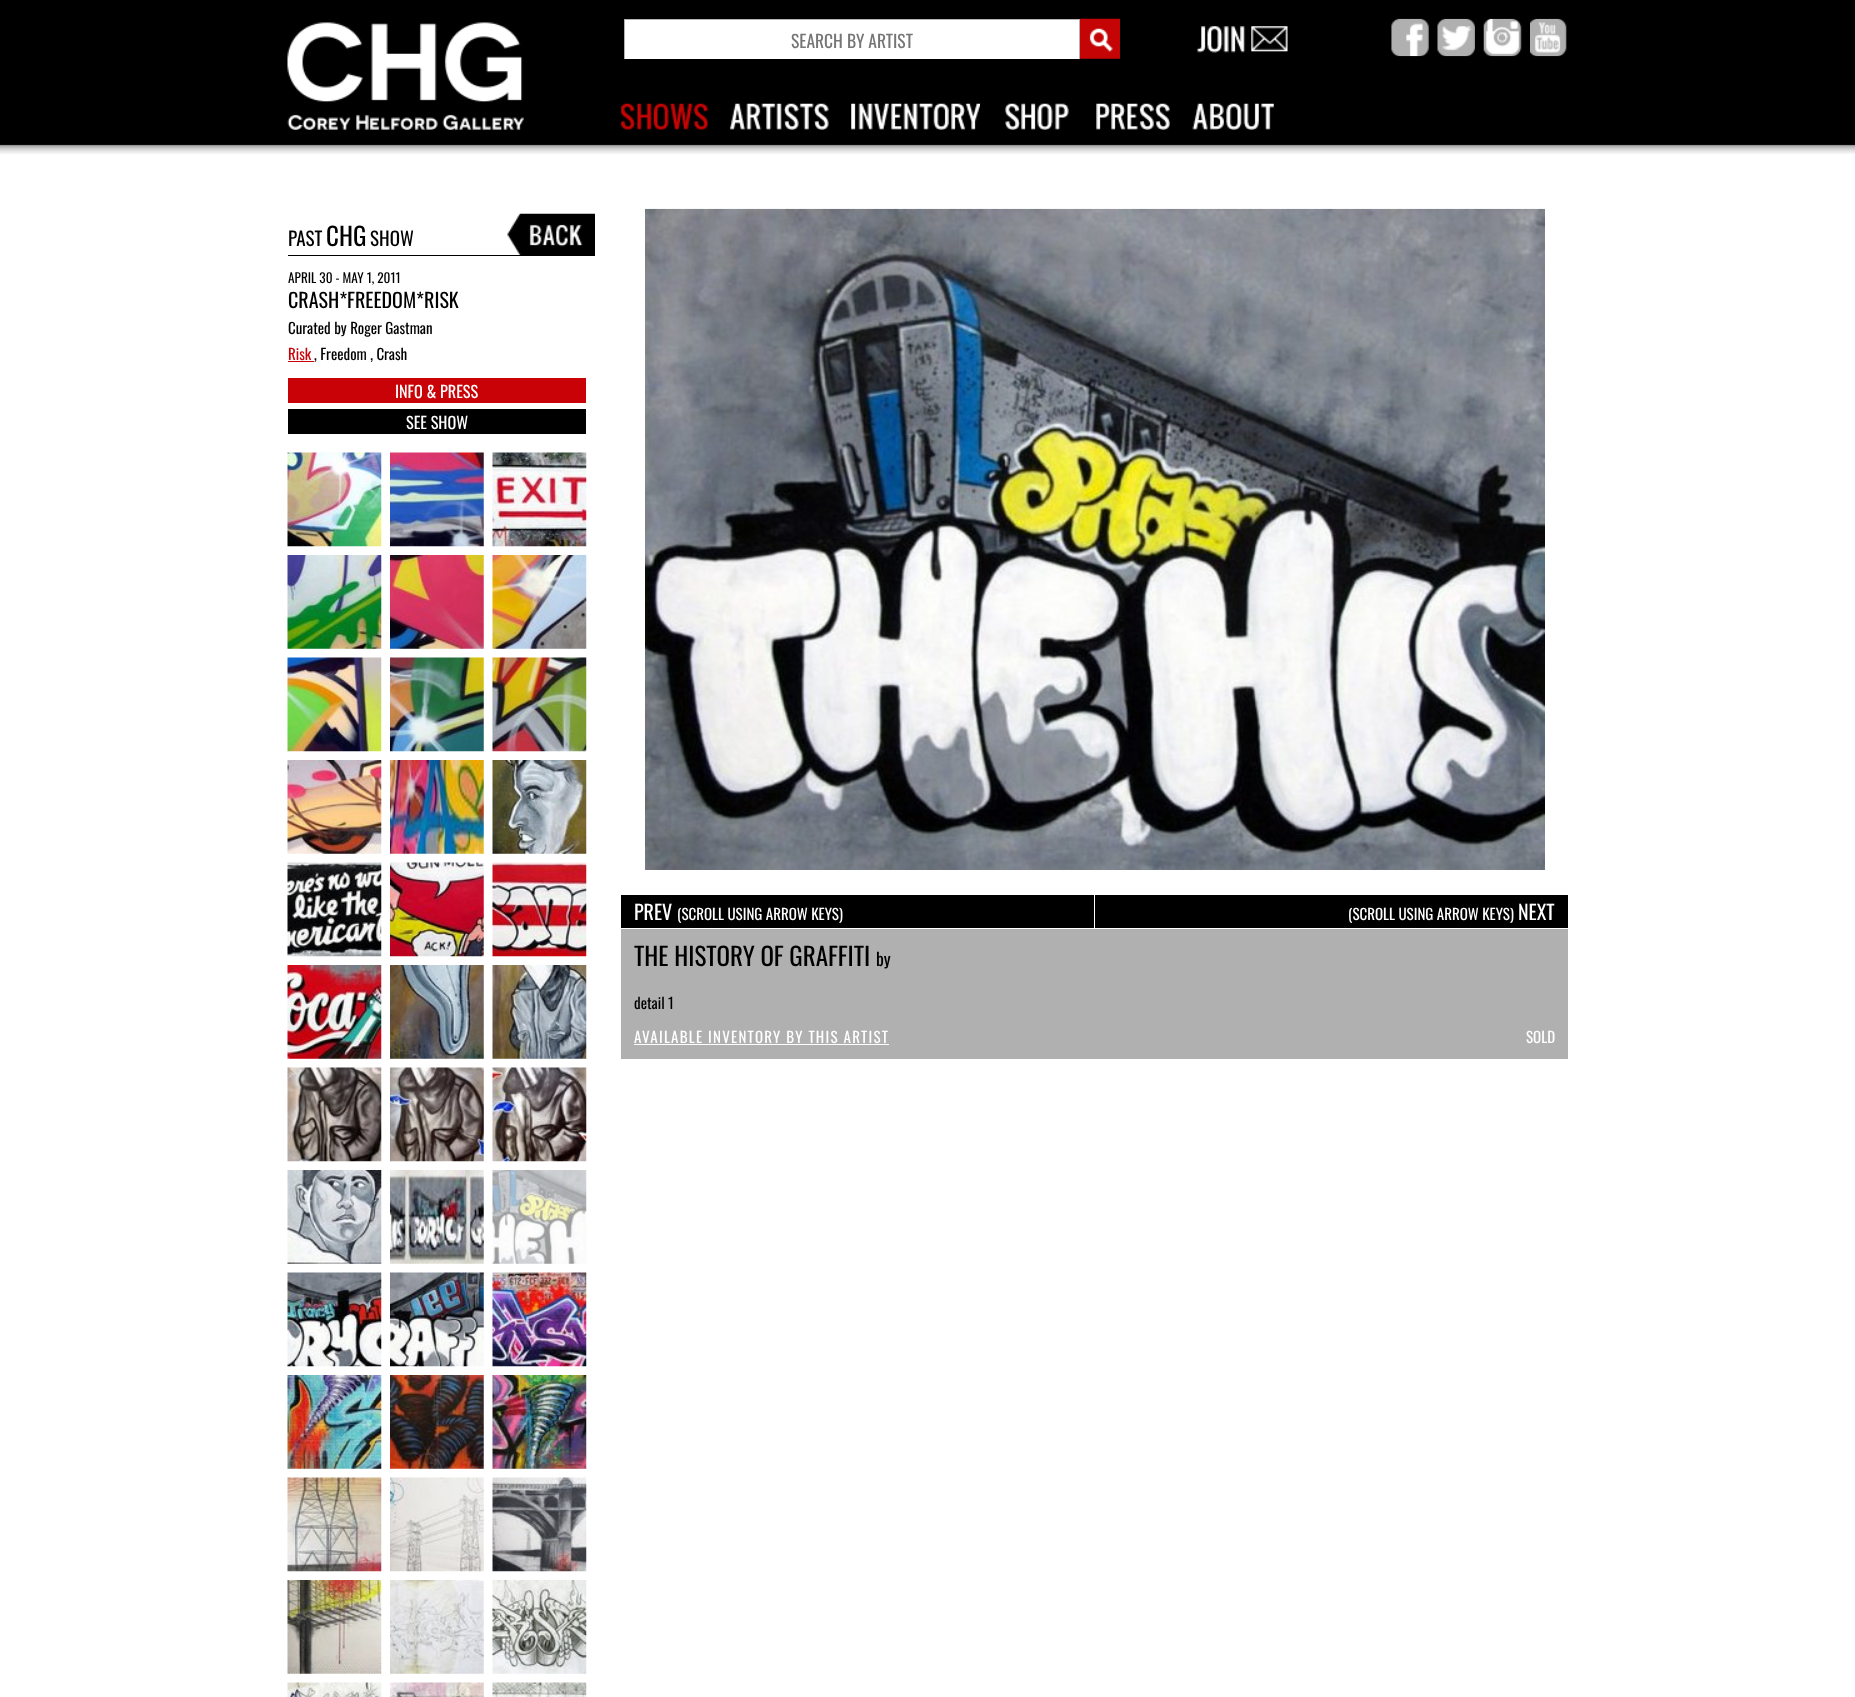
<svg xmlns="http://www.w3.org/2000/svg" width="1855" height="1697">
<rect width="100%" height="100%" fill="#fff"/>
<image x="0" y="0" width="1855" height="154" href="media/1.png"/>
<image x="287" y="22" width="237" height="108" href="media/2.png"/>
<rect x="625" y="20" width="454" height="39" fill="#fff"/>
<rect x="624" y="19" width="456" height="1" fill="#b2b2b2"/>
<rect x="1079" y="19" width="1" height="40" fill="#b2b2b2"/>
<rect x="624" y="19" width="1" height="40" fill="#b2b2b2"/>
<text x="791" y="48" style="font-family:Oswald;font-size:17.5px;fill:#757575">SEARCH BY ARTIST</text>
<image x="1080" y="18" width="40" height="41" href="media/3.png"/>
<image x="1197" y="26" width="91" height="27" href="media/4.png"/>
<image x="621" y="103" width="87" height="27" href="media/5.png"/>
<image x="730" y="103" width="99" height="27" href="media/6.png"/>
<image x="851" y="103" width="129" height="27" href="media/7.png"/>
<image x="1004" y="103" width="65" height="27" href="media/8.png"/>
<image x="1096" y="103" width="74" height="27" href="media/9.png"/>
<image x="1192" y="103" width="82" height="27" href="media/10.png"/>
<image x="1391" y="18" width="38" height="39" href="media/11.png"/>
<image x="1437" y="18" width="38" height="39" href="media/12.png"/>
<image x="1483" y="18" width="39" height="39" href="media/13.png"/>
<image x="1530" y="18" width="37" height="39" href="media/14.png"/>
<rect x="288" y="255" width="307" height="1" fill="#000"/>
<text x="288" y="246" style="font-family:Oswald;font-size:19px;fill:#000">PAST</text>
<text x="326" y="246" style="font-family:Oswald;font-size:25px;fill:#000">CHG</text>
<text x="370" y="246" style="font-family:Oswald;font-size:19px;fill:#000">SHOW</text>
<image x="507" y="213" width="88" height="42" href="media/15.png"/>
<text x="288" y="283" style="font-family:Oswald;font-size:13.25px;fill:#000">APRIL 30 - MAY 1, 2011</text>
<text x="288" y="308" style="font-family:Oswald;font-size:20px;fill:#000">CRASH*FREEDOM*RISK</text>
<text x="288" y="334" style="font-family:Oswald;font-size:15px;fill:#000">Curated by Roger Gastman</text>
<text x="288" y="360" style="font-family:Oswald;font-size:15px;fill:#c90208">Risk</text>
<rect x="288" y="361" width="26" height="1" fill="#c90208"/>
<text x="314" y="360" style="font-family:Oswald;font-size:15px;fill:#000">, Freedom , Crash</text>
<rect x="288" y="378" width="298" height="25" fill="#c90208"/>
<text x="395" y="398" style="font-family:Oswald;font-size:16.25px;fill:#fff">INFO &amp; PRESS</text>
<rect x="288" y="409" width="298" height="25" fill="#000"/>
<text x="406" y="429" style="font-family:Oswald;font-size:16.25px;fill:#fff">SEE SHOW</text>
<image x="287" y="452" width="95" height="95" href="media/16.png"/>
<image x="390" y="452" width="94" height="95" href="media/17.png"/>
<image x="492" y="452" width="95" height="95" href="media/18.png"/>
<image x="287" y="555" width="95" height="94" href="media/19.png"/>
<image x="390" y="555" width="94" height="94" href="media/20.png"/>
<image x="492" y="555" width="95" height="94" href="media/21.png"/>
<image x="287" y="657" width="95" height="95" href="media/22.png"/>
<image x="390" y="657" width="94" height="95" href="media/23.png"/>
<image x="492" y="657" width="95" height="95" href="media/24.png"/>
<image x="287" y="760" width="95" height="94" href="media/25.png"/>
<image x="390" y="760" width="94" height="94" href="media/26.png"/>
<image x="492" y="760" width="95" height="94" href="media/27.png"/>
<image x="287" y="862" width="95" height="95" href="media/28.png"/>
<image x="390" y="862" width="94" height="95" href="media/29.png"/>
<image x="492" y="862" width="95" height="95" href="media/30.png"/>
<image x="287" y="965" width="95" height="94" href="media/31.png"/>
<image x="390" y="965" width="94" height="94" href="media/32.png"/>
<image x="492" y="965" width="95" height="94" href="media/33.png"/>
<image x="287" y="1067" width="95" height="95" href="media/34.png"/>
<image x="390" y="1067" width="94" height="95" href="media/35.png"/>
<image x="492" y="1067" width="95" height="95" href="media/36.png"/>
<image x="287" y="1170" width="95" height="94" href="media/37.png"/>
<image x="390" y="1170" width="94" height="94" href="media/38.png"/>
<image x="492" y="1170" width="95" height="94" href="media/39.png"/>
<image x="287" y="1272" width="95" height="95" href="media/40.png"/>
<image x="390" y="1272" width="94" height="95" href="media/41.png"/>
<image x="492" y="1272" width="95" height="95" href="media/42.png"/>
<image x="287" y="1375" width="95" height="94" href="media/43.png"/>
<image x="390" y="1375" width="94" height="94" href="media/44.png"/>
<image x="492" y="1375" width="95" height="94" href="media/45.png"/>
<image x="287" y="1477" width="95" height="95" href="media/46.png"/>
<image x="390" y="1477" width="94" height="95" href="media/47.png"/>
<image x="492" y="1477" width="95" height="95" href="media/48.png"/>
<image x="287" y="1580" width="95" height="94" href="media/49.png"/>
<image x="390" y="1580" width="94" height="94" href="media/50.png"/>
<image x="492" y="1580" width="95" height="94" href="media/51.png"/>
<image x="287" y="1682" width="95" height="15" href="media/52.png"/>
<image x="390" y="1682" width="94" height="15" href="media/53.png"/>
<image x="492" y="1682" width="95" height="15" href="media/54.png"/>
<image x="645" y="208" width="900" height="662" href="media/55.png"/>
<rect x="621" y="895" width="473" height="33" fill="#000"/>
<text x="634" y="920" style="font-family:Oswald;font-size:20px;fill:#fff">PREV</text>
<text x="677" y="920" style="font-family:Oswald;font-size:15px;fill:#fff">(SCROLL USING ARROW KEYS)</text>
<rect x="1095" y="895" width="473" height="33" fill="#000"/>
<text x="1348" y="920" style="font-family:Oswald;font-size:15px;fill:#fff">(SCROLL USING ARROW KEYS)</text>
<text x="1518" y="920" style="font-family:Oswald;font-size:20px;fill:#fff">NEXT</text>
<rect x="621" y="929" width="947" height="130" fill="#b0b0b0"/>
<text x="634" y="966" style="font-family:Oswald;font-size:25px;fill:#000">THE HISTORY OF GRAFFITI</text>
<text x="876" y="966" style="font-family:Oswald;font-size:17.5px;fill:#000">by</text>
<text x="634" y="1009" style="font-family:Oswald;font-size:15px;fill:#000">detail 1</text>
<text x="634" y="1043" style="font-family:Oswald;font-size:15px;letter-spacing:1.25px;fill:#fff">AVAILABLE INVENTORY BY THIS ARTIST</text>
<rect x="634" y="1044" width="255" height="1" fill="#fff"/>
<text x="1526" y="1043" style="font-family:Oswald;font-size:15px;fill:#fff">SOLD</text>
</svg>
